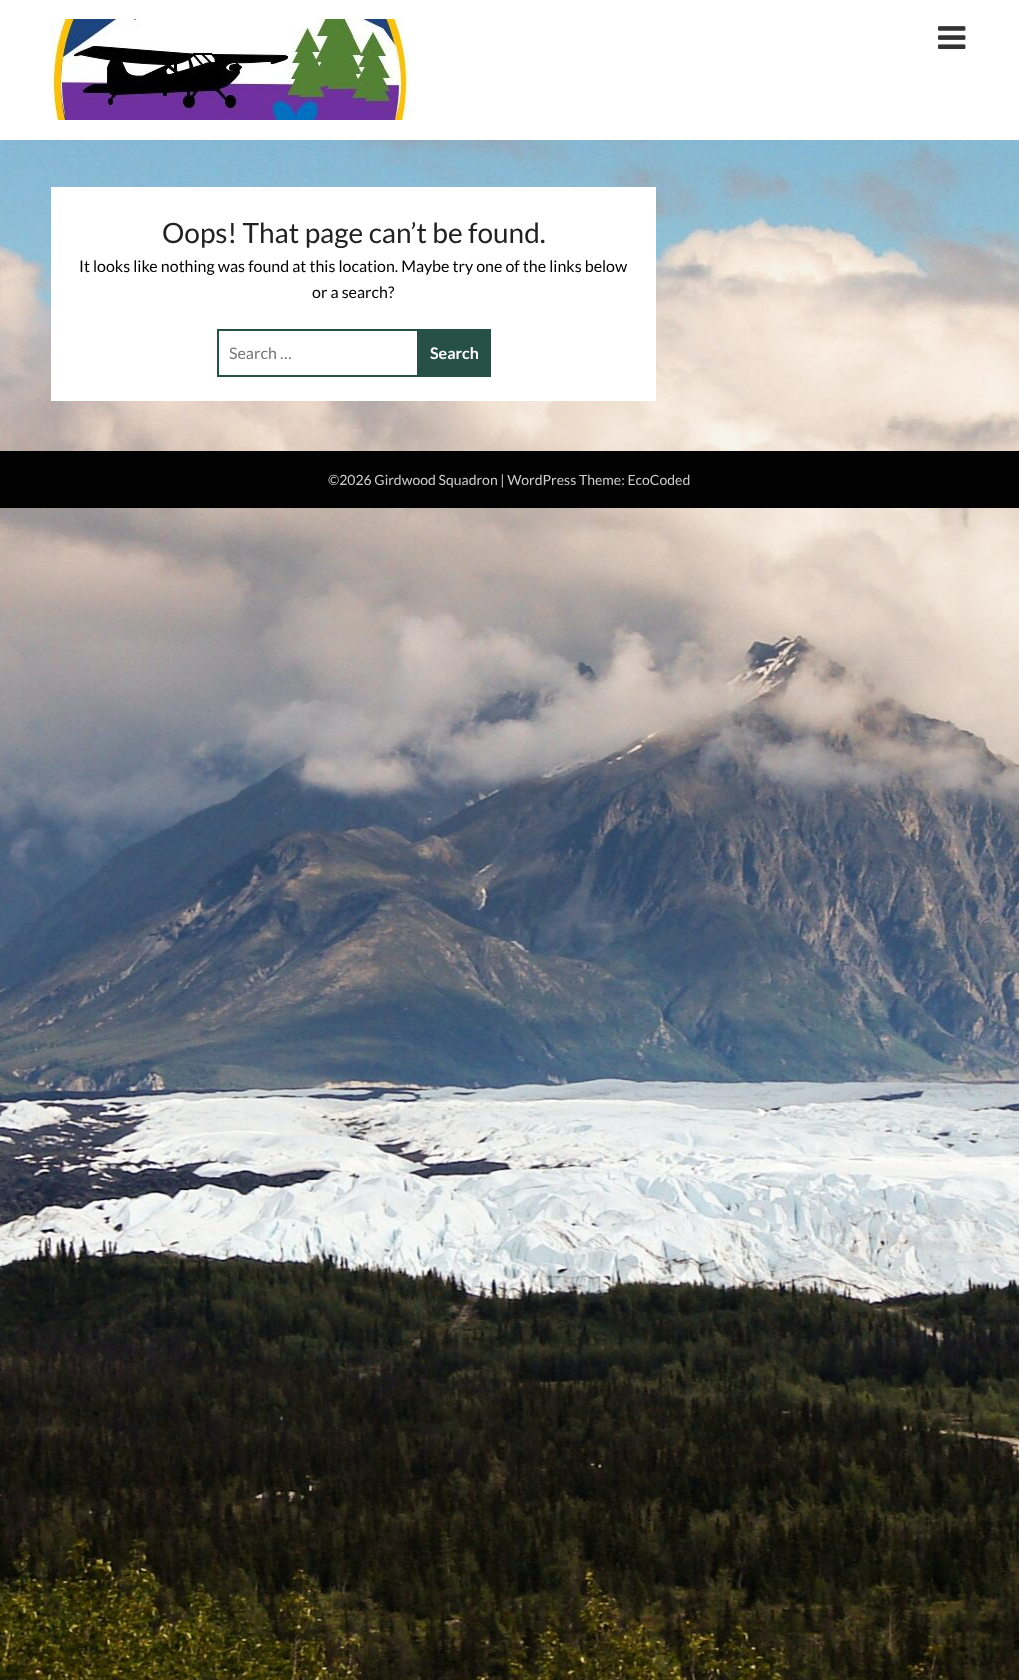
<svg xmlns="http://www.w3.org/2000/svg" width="1019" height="1680">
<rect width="100%" height="100%" fill="#fff"/>
<image x="0" y="140" width="1019" height="1540" href="media/1.png"/>
<image x="51" y="19" width="358" height="101" href="media/2.png"/>
<image x="938" y="26" width="28" height="23" href="media/3.png"/>
<rect x="51" y="187" width="605" height="214" fill="#fff"/>
<text x="162" y="243" style="font-family:Lato;font-size:28px;fill:#222">Oops! That page can’t be found.</text>
<text x="79" y="272" style="font-family:Lato;font-size:16px;fill:#000">It looks like nothing was found at this location. Maybe try one of the links below</text>
<text x="312" y="298" style="font-family:Lato;font-size:16px;fill:#000">or a search?</text>
<rect x="218" y="330" width="200" height="46" fill="none" stroke="#275044" stroke-width="2"/>
<text x="229" y="359" style="font-family:Lato;font-size:16px;fill:#757575">Search …</text>
<rect x="419" y="329" width="72" height="48" fill="#275044"/>
<text x="430" y="359" style="font-family:Lato;font-size:16px;font-weight:bold;fill:#fff">Search</text>
<rect y="451" width="1019" height="57" fill="#020202"/>
<text x="328" y="485" style="font-family:Lato;font-size:14px;fill:#cecece">©2026 Girdwood Squadron | WordPress Theme: EcoCoded</text>
</svg>
